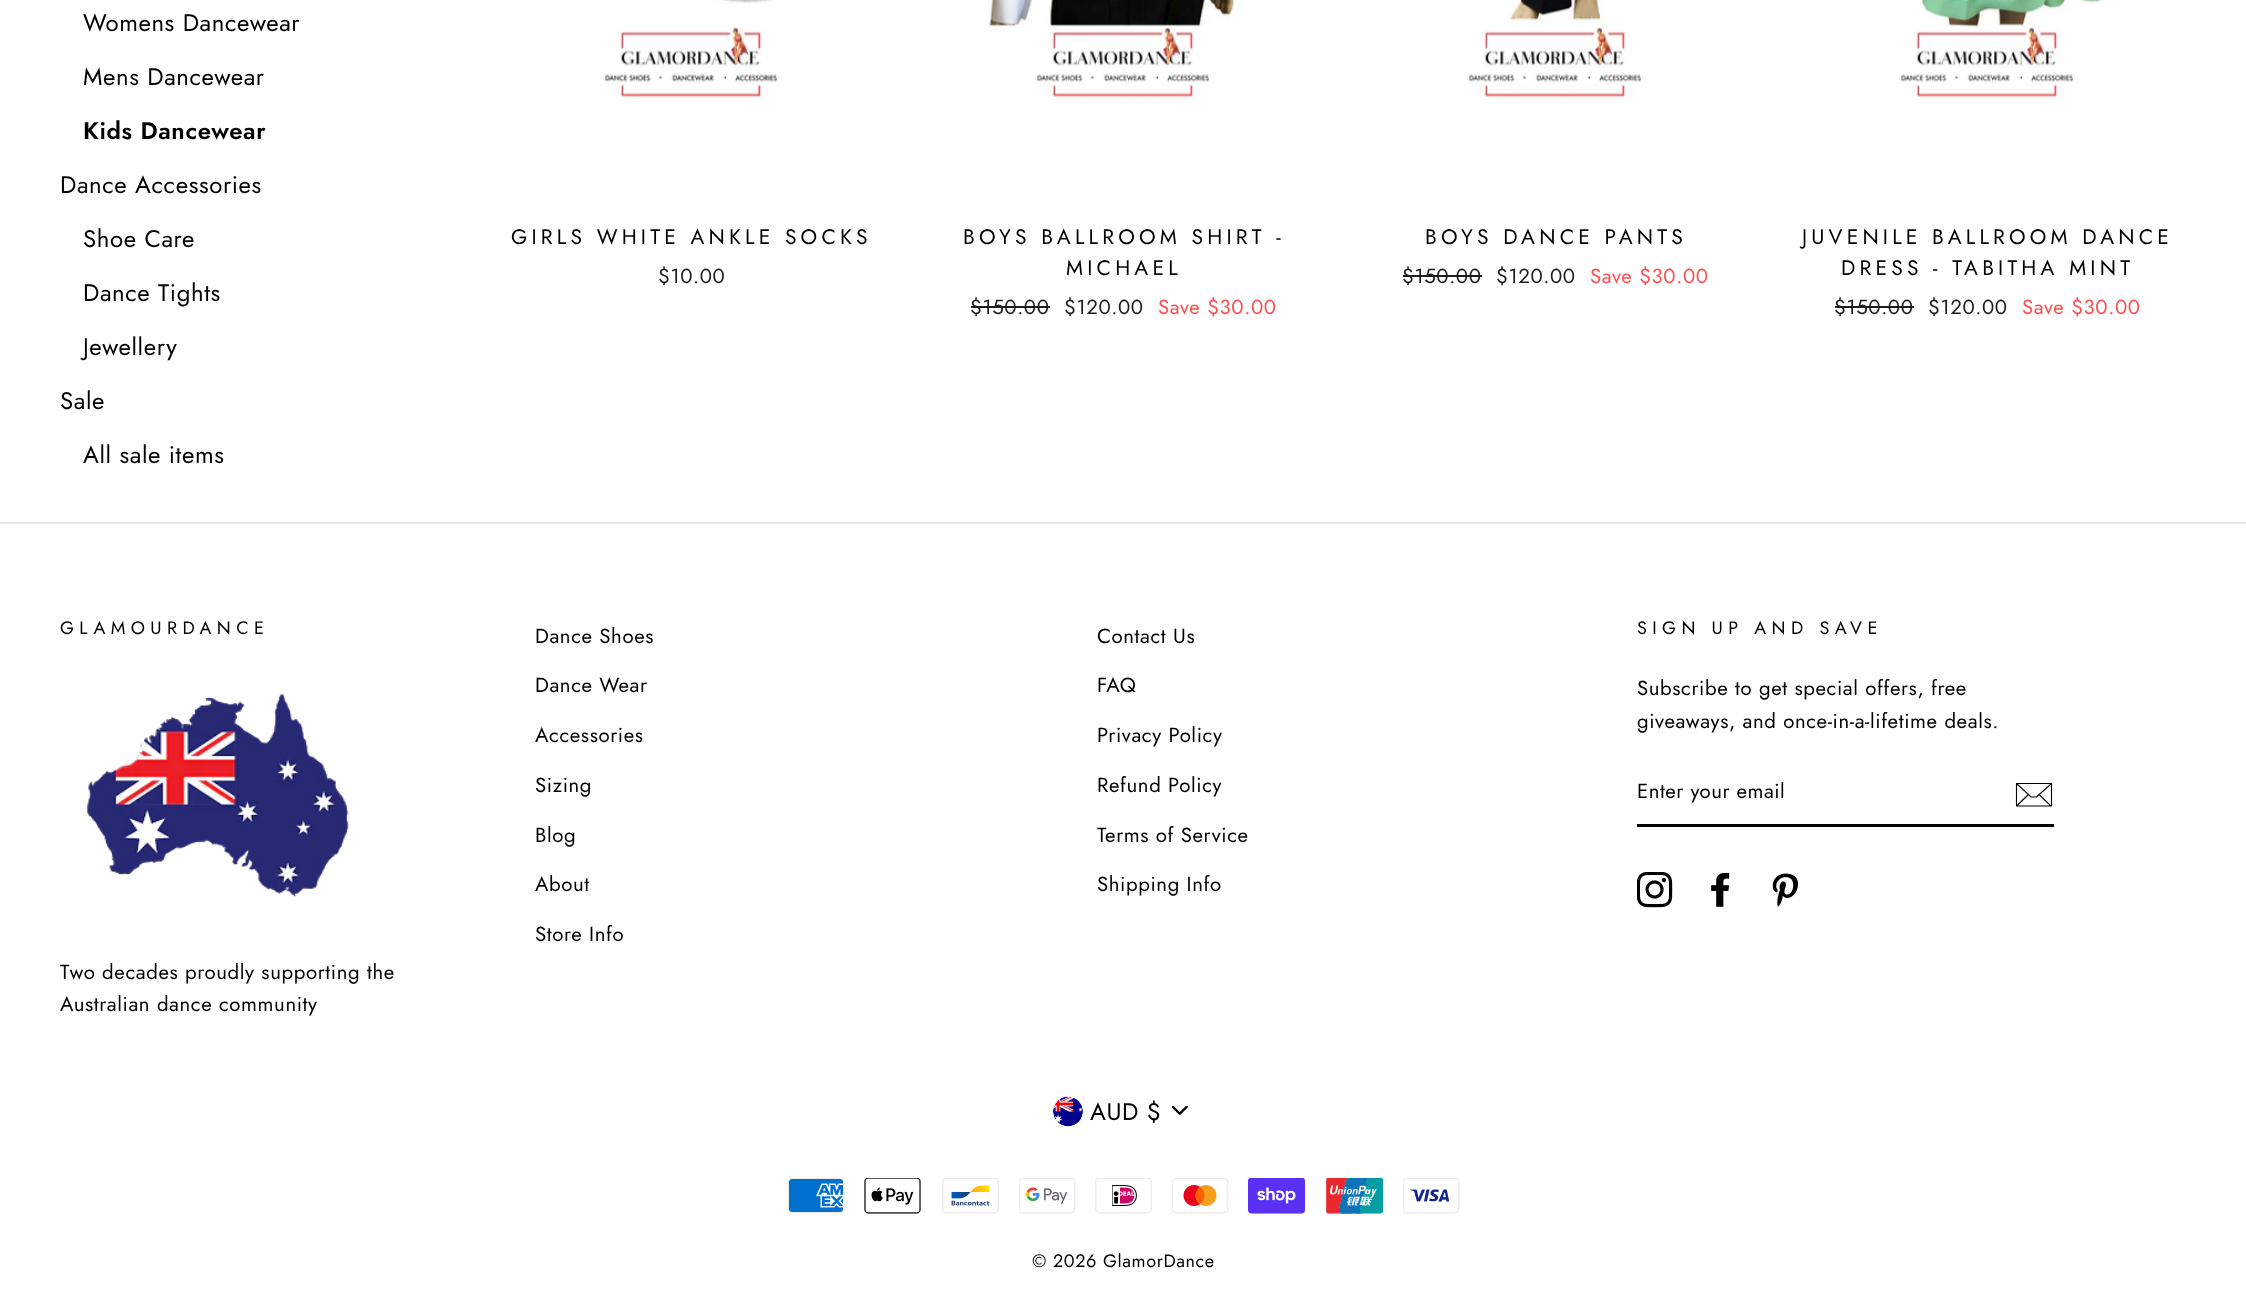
<svg xmlns="http://www.w3.org/2000/svg" width="2246" height="1311">
<rect width="100%" height="100%" fill="#fff"/>
<text x="83" y="31" style="font-family:Jost;font-size:24px;letter-spacing:0.6px;fill:#000">Womens Dancewear</text>
<text x="83" y="85" style="font-family:Jost;font-size:24px;letter-spacing:0.6px;fill:#000">Mens Dancewear</text>
<text x="83" y="139" style="font-family:Jost;font-size:24px;font-weight:600;letter-spacing:0.6px;fill:#000">Kids Dancewear</text>
<text x="60" y="193" style="font-family:Jost;font-size:24px;letter-spacing:0.6px;fill:#000">Dance Accessories</text>
<text x="83" y="247" style="font-family:Jost;font-size:24px;letter-spacing:0.6px;fill:#000">Shoe Care</text>
<text x="83" y="301" style="font-family:Jost;font-size:24px;letter-spacing:0.6px;fill:#000">Dance Tights</text>
<text x="83" y="355" style="font-family:Jost;font-size:24px;letter-spacing:0.6px;fill:#000">Jewellery</text>
<text x="60" y="409" style="font-family:Jost;font-size:24px;letter-spacing:0.6px;fill:#000">Sale</text>
<text x="83" y="463" style="font-family:Jost;font-size:24px;letter-spacing:0.6px;fill:#000">All sale items</text>
<image x="603" y="0" width="176" height="101" href="media/1.png"/>
<text x="511" y="244" style="font-family:Jost;font-size:21px;letter-spacing:4.2px;fill:#000">GIRLS WHITE ANKLE SOCKS</text>
<text x="658" y="283" style="font-family:Jost;font-size:20.4px;letter-spacing:0.6px;fill:#1c1d1d">$10.00</text>
<image x="987" y="0" width="256" height="101" href="media/2.png"/>
<text x="963" y="244" style="font-family:Jost;font-size:21px;letter-spacing:4.2px;fill:#000">BOYS BALLROOM SHIRT -</text>
<text x="1066" y="275" style="font-family:Jost;font-size:21px;letter-spacing:4.2px;fill:#000">MICHAEL</text>
<text x="970" y="314" style="font-family:Jost;font-size:20.4px;letter-spacing:0.6px;fill:#1c1d1d">$150.00</text>
<rect x="971" y="306" width="79" height="2" fill="#1c1d1d"/>
<text x="1064" y="314" style="font-family:Jost;font-size:20.4px;letter-spacing:0.6px;fill:#1c1d1d">$120.00</text>
<text x="1158" y="314" style="font-family:Jost;font-size:20.4px;letter-spacing:0.6px;fill:#ff4e4e">Save $30.00</text>
<image x="1467" y="0" width="176" height="100" href="media/3.png"/>
<text x="1425" y="244" style="font-family:Jost;font-size:21px;letter-spacing:4.2px;fill:#000">BOYS DANCE PANTS</text>
<text x="1402" y="283" style="font-family:Jost;font-size:20.4px;letter-spacing:0.6px;fill:#1c1d1d">$150.00</text>
<rect x="1403" y="275" width="79" height="2" fill="#1c1d1d"/>
<text x="1496" y="283" style="font-family:Jost;font-size:20.4px;letter-spacing:0.6px;fill:#1c1d1d">$120.00</text>
<text x="1590" y="283" style="font-family:Jost;font-size:20.4px;letter-spacing:0.6px;fill:#ff4e4e">Save $30.00</text>
<image x="1899" y="0" width="204" height="100" href="media/4.png"/>
<text x="1802" y="244" style="font-family:Jost;font-size:21px;letter-spacing:4.2px;fill:#000">JUVENILE BALLROOM DANCE</text>
<text x="1841" y="275" style="font-family:Jost;font-size:21px;letter-spacing:4.2px;fill:#000">DRESS - TABITHA MINT</text>
<text x="1834" y="314" style="font-family:Jost;font-size:20.4px;letter-spacing:0.6px;fill:#1c1d1d">$150.00</text>
<rect x="1835" y="306" width="79" height="2" fill="#1c1d1d"/>
<text x="1928" y="314" style="font-family:Jost;font-size:20.4px;letter-spacing:0.6px;fill:#1c1d1d">$120.00</text>
<text x="2022" y="314" style="font-family:Jost;font-size:20.4px;letter-spacing:0.6px;fill:#ff4e4e">Save $30.00</text>
<rect y="522" width="2246" height="2" fill="#e8e8e1"/>
<text x="60" y="634" style="font-family:Jost;font-size:18px;letter-spacing:5.4px;fill:#000">GLAMOURDANCE</text>
<image x="87" y="694" width="262" height="203" href="media/5.png"/>
<text x="60" y="979" style="font-family:Jost;font-size:20.4px;letter-spacing:0.6px;fill:#000">Two decades proudly supporting the</text>
<text x="60" y="1011" style="font-family:Jost;font-size:20.4px;letter-spacing:0.6px;fill:#000">Australian dance community</text>
<text x="535" y="643" style="font-family:Jost;font-size:20.4px;letter-spacing:0.6px;fill:#000">Dance Shoes</text>
<text x="535" y="692" style="font-family:Jost;font-size:20.4px;letter-spacing:0.6px;fill:#000">Dance Wear</text>
<text x="535" y="742" style="font-family:Jost;font-size:20.4px;letter-spacing:0.6px;fill:#000">Accessories</text>
<text x="535" y="792" style="font-family:Jost;font-size:20.4px;letter-spacing:0.6px;fill:#000">Sizing</text>
<text x="535" y="842" style="font-family:Jost;font-size:20.4px;letter-spacing:0.6px;fill:#000">Blog</text>
<text x="535" y="891" style="font-family:Jost;font-size:20.4px;letter-spacing:0.6px;fill:#000">About</text>
<text x="535" y="941" style="font-family:Jost;font-size:20.4px;letter-spacing:0.6px;fill:#000">Store Info</text>
<text x="1097" y="643" style="font-family:Jost;font-size:20.4px;letter-spacing:0.6px;fill:#000">Contact Us</text>
<text x="1097" y="692" style="font-family:Jost;font-size:20.4px;letter-spacing:0.6px;fill:#000">FAQ</text>
<text x="1097" y="742" style="font-family:Jost;font-size:20.4px;letter-spacing:0.6px;fill:#000">Privacy Policy</text>
<text x="1097" y="792" style="font-family:Jost;font-size:20.4px;letter-spacing:0.6px;fill:#000">Refund Policy</text>
<text x="1097" y="842" style="font-family:Jost;font-size:20.4px;letter-spacing:0.6px;fill:#000">Terms of Service</text>
<text x="1097" y="891" style="font-family:Jost;font-size:20.4px;letter-spacing:0.6px;fill:#000">Shipping Info</text>
<text x="1637" y="634" style="font-family:Jost;font-size:18px;letter-spacing:5.4px;fill:#000">SIGN UP AND SAVE</text>
<text x="1637" y="695" style="font-family:Jost;font-size:20.4px;letter-spacing:0.6px;fill:#000">Subscribe to get special offers, free</text>
<text x="1637" y="728" style="font-family:Jost;font-size:20.4px;letter-spacing:0.6px;fill:#000">giveaways, and once-in-a-lifetime deals.</text>
<rect x="1637" y="824" width="417" height="3" fill="#000"/>
<text x="1637" y="798" style="font-family:Jost;font-size:20.4px;letter-spacing:0.5px;fill:#000">Enter your email</text>
<path d="M2051.5 806h-35v-22.5h35zm-35-22.5l14.5 13.5h5.5l15-13.5m-23 11l-11.5 11m34 .5l-12-11.5" fill="none" stroke="#000" stroke-width="1.1"/>
<image x="1637" y="872" width="36" height="36" href="media/6.png"/>
<image x="1711" y="872" width="19" height="35" href="media/7.png"/>
<image x="1772" y="873" width="26" height="34" href="media/8.png"/>
<image x="1172" y="1106" width="16" height="9" href="media/9.png"/>
<image x="1053" y="1096" width="30" height="31" href="media/10.png"/>
<text x="1090" y="1120" style="font-family:Jost;font-size:24px;letter-spacing:0.6px;fill:#000">AUD $</text>
<image x="788" y="1178" width="57" height="36" href="media/11.png"/>
<image x="864" y="1178" width="57" height="36" href="media/12.png"/>
<image x="942" y="1178" width="57" height="36" href="media/13.png"/>
<image x="1019" y="1178" width="57" height="36" href="media/14.png"/>
<image x="1095" y="1178" width="57" height="36" href="media/15.png"/>
<image x="1172" y="1178" width="57" height="36" href="media/16.png"/>
<image x="1248" y="1178" width="57" height="36" href="media/17.png"/>
<image x="1326" y="1178" width="57" height="36" href="media/18.png"/>
<image x="1403" y="1178" width="57" height="36" href="media/19.png"/>
<text x="1032" y="1267" style="font-family:Jost;font-size:18px;letter-spacing:0.6px;fill:#000">© 2026 GlamorDance</text>
</svg>
